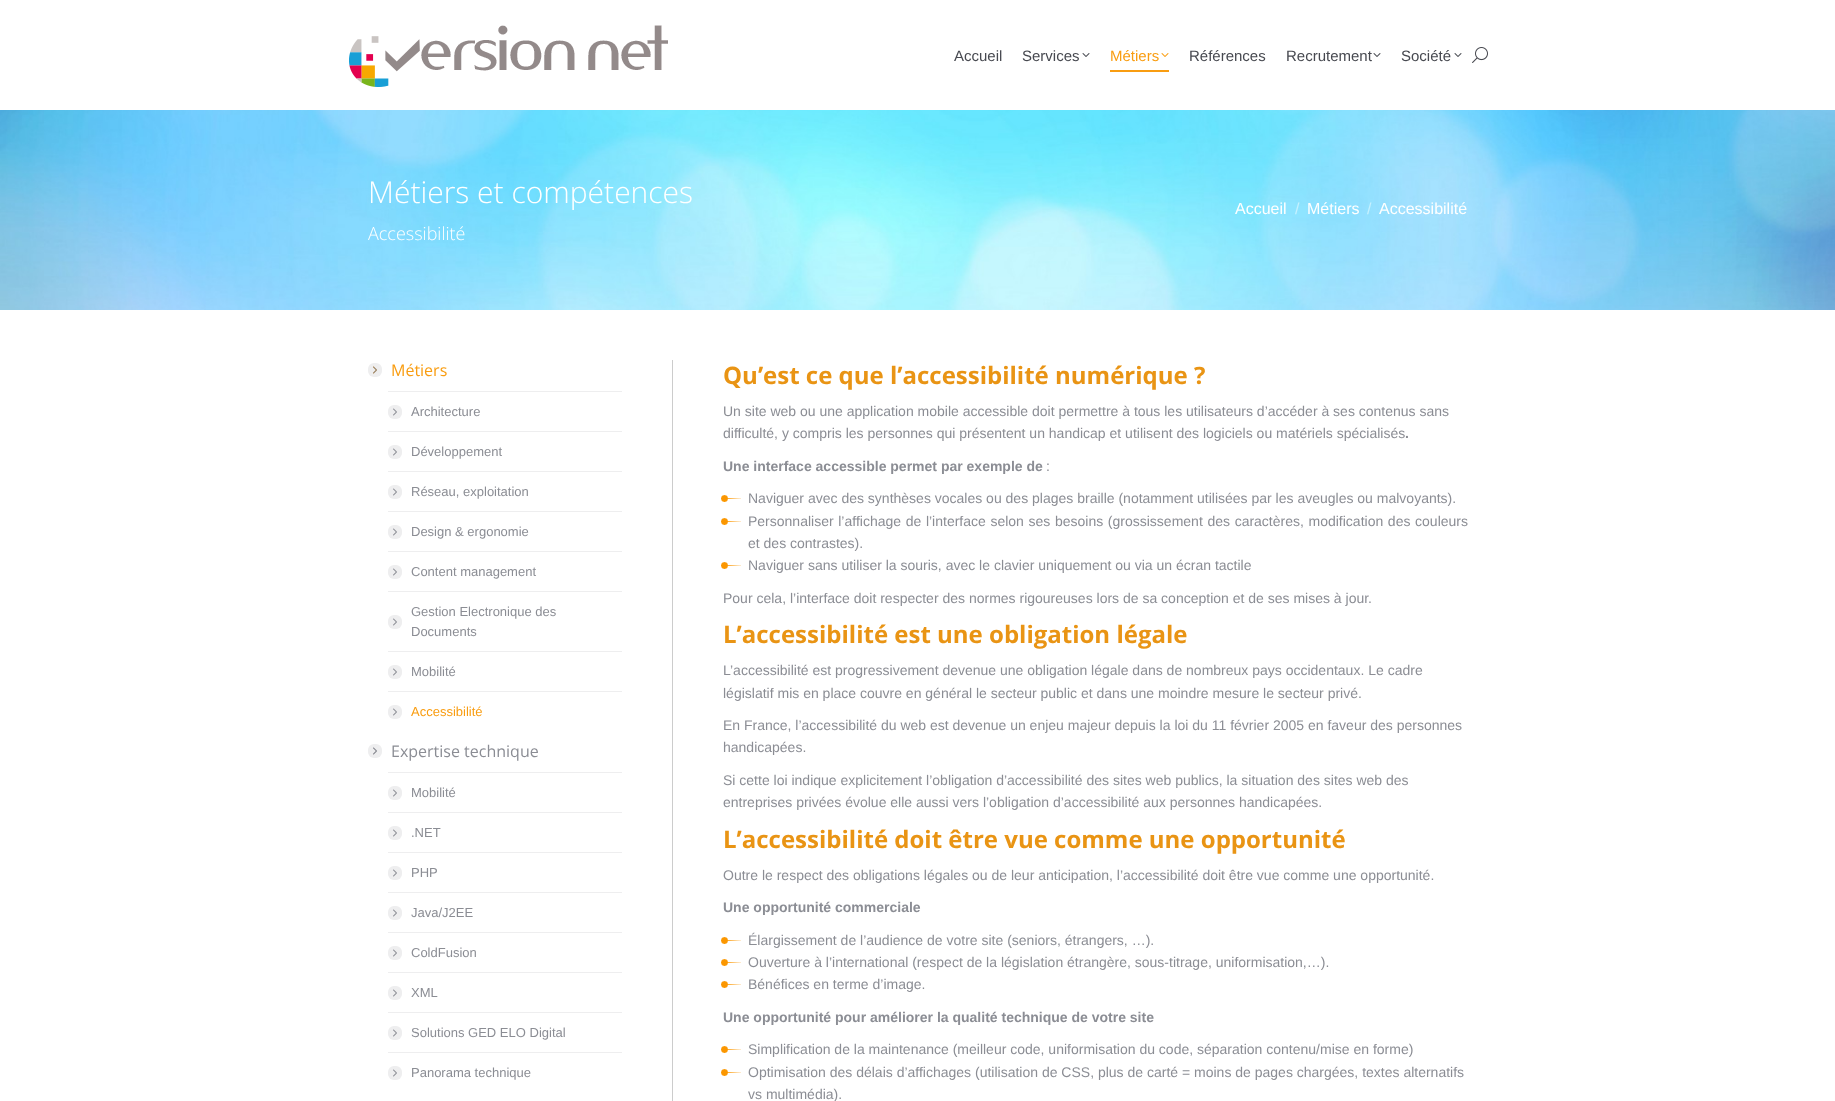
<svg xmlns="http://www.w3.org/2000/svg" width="1835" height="1101">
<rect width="100%" height="100%" fill="#fff"/>
<image x="349" y="25" width="319" height="62" href="media/1.png"/>
<text x="954" y="61" style="font-family:Liberation Sans;font-size:15px;fill:#474950">Accueil</text>
<text x="1022" y="61" style="font-family:Liberation Sans;font-size:15px;fill:#474950">Services</text>
<image x="1082" y="53" width="8" height="4" href="media/2.png"/>
<text x="1110" y="61" style="font-family:Liberation Sans;font-size:15px;fill:#f99d11">Métiers</text>
<image x="1161" y="53" width="8" height="4" href="media/3.png"/>
<rect x="1110" y="70" width="59" height="2" fill="#f99d11"/>
<text x="1189" y="61" style="font-family:Liberation Sans;font-size:15px;fill:#474950">Références</text>
<text x="1286" y="61" style="font-family:Liberation Sans;font-size:15px;fill:#474950">Recrutement</text>
<image x="1373" y="53" width="8" height="4" href="media/2.png"/>
<text x="1401" y="61" style="font-family:Liberation Sans;font-size:15px;fill:#474950">Société</text>
<image x="1454" y="53" width="8" height="4" href="media/2.png"/>
<image x="1472" y="47" width="16" height="16" href="media/4.png"/>
<image x="0" y="110" width="1835" height="200" href="media/5.png"/>
<text x="368" y="203" style="font-family:Open Sans;font-size:30px;font-weight:300;fill:#fff">Métiers et compétences</text>
<text x="368" y="240" style="font-family:Open Sans;font-size:18px;font-weight:300;fill:#fff">Accessibilité</text>
<text x="1235" y="214" style="font-family:Liberation Sans;font-size:16px;fill:#fff">Accueil</text>
<text x="1295" y="214" style="font-family:Liberation Sans;font-size:16px;fill:#c6f1ff">/</text>
<text x="1307" y="214" style="font-family:Liberation Sans;font-size:16px;fill:#fff">Métiers</text>
<text x="1367" y="214" style="font-family:Liberation Sans;font-size:16px;fill:#c6f1ff">/</text>
<text x="1379" y="214" style="font-family:Liberation Sans;font-size:16px;fill:#fff">Accessibilité</text>
<rect x="672" y="360" width="1" height="741" fill="#ccc"/>
<rect x="368" y="363" width="14" height="14" rx="6" fill="#eeeeef"/>
<text x="391" y="376" style="font-family:Open Sans;font-size:16px;fill:#f99d11">Métiers</text>
<image x="373" y="366" width="4" height="8" href="media/6.png"/>
<image x="373" y="366" width="4" height="8" href="media/7.png"/>
<rect x="388" y="391" width="234" height="1" fill="#eeeeef"/>
<rect x="388" y="405" width="14" height="14" rx="6" fill="#eeeeef"/>
<text x="411" y="416" style="font-family:Liberation Sans;font-size:13px;fill:#8b8d94">Architecture</text>
<image x="393" y="408" width="4" height="8" href="media/8.png"/>
<rect x="388" y="431" width="234" height="1" fill="#eeeeef"/>
<rect x="388" y="445" width="14" height="14" rx="6" fill="#eeeeef"/>
<text x="411" y="456" style="font-family:Liberation Sans;font-size:13px;fill:#8b8d94">Développement</text>
<image x="393" y="448" width="4" height="8" href="media/8.png"/>
<rect x="388" y="471" width="234" height="1" fill="#eeeeef"/>
<rect x="388" y="485" width="14" height="14" rx="6" fill="#eeeeef"/>
<text x="411" y="496" style="font-family:Liberation Sans;font-size:13px;fill:#8b8d94">Réseau, exploitation</text>
<image x="393" y="488" width="4" height="8" href="media/8.png"/>
<rect x="388" y="511" width="234" height="1" fill="#eeeeef"/>
<rect x="388" y="525" width="14" height="14" rx="6" fill="#eeeeef"/>
<text x="411" y="536" style="font-family:Liberation Sans;font-size:13px;fill:#8b8d94">Design &amp; ergonomie</text>
<image x="393" y="528" width="4" height="8" href="media/8.png"/>
<rect x="388" y="551" width="234" height="1" fill="#eeeeef"/>
<rect x="388" y="565" width="14" height="14" rx="6" fill="#eeeeef"/>
<text x="411" y="576" style="font-family:Liberation Sans;font-size:13px;fill:#8b8d94">Content management</text>
<image x="393" y="568" width="4" height="8" href="media/8.png"/>
<rect x="388" y="591" width="234" height="1" fill="#eeeeef"/>
<text x="411" y="616" style="font-family:Liberation Sans;font-size:13px;fill:#8b8d94">Gestion Electronique des</text>
<rect x="388" y="615" width="14" height="14" rx="6" fill="#eeeeef"/>
<image x="393" y="618" width="4" height="8" href="media/8.png"/>
<text x="411" y="636" style="font-family:Liberation Sans;font-size:13px;fill:#8b8d94">Documents</text>
<rect x="388" y="651" width="234" height="1" fill="#eeeeef"/>
<rect x="388" y="665" width="14" height="14" rx="6" fill="#eeeeef"/>
<text x="411" y="676" style="font-family:Liberation Sans;font-size:13px;fill:#8b8d94">Mobilité</text>
<image x="393" y="668" width="4" height="8" href="media/8.png"/>
<rect x="388" y="691" width="234" height="1" fill="#eeeeef"/>
<rect x="388" y="705" width="14" height="14" rx="6" fill="#eeeeef"/>
<text x="411" y="716" style="font-family:Liberation Sans;font-size:13px;fill:#f99d11">Accessibilité</text>
<image x="393" y="708" width="4" height="8" href="media/8.png"/>
<rect x="368" y="744" width="14" height="14" rx="6" fill="#eeeeef"/>
<text x="391" y="757" style="font-family:Open Sans;font-size:16px;fill:#8b8d94">Expertise technique</text>
<image x="373" y="747" width="4" height="8" href="media/9.png"/>
<image x="373" y="747" width="4" height="8" href="media/10.png"/>
<rect x="388" y="772" width="234" height="1" fill="#eeeeef"/>
<rect x="388" y="786" width="14" height="14" rx="6" fill="#eeeeef"/>
<text x="411" y="797" style="font-family:Liberation Sans;font-size:13px;fill:#8b8d94">Mobilité</text>
<image x="393" y="789" width="4" height="8" href="media/8.png"/>
<rect x="388" y="812" width="234" height="1" fill="#eeeeef"/>
<rect x="388" y="826" width="14" height="14" rx="6" fill="#eeeeef"/>
<text x="411" y="837" style="font-family:Liberation Sans;font-size:13px;fill:#8b8d94">.NET</text>
<image x="393" y="829" width="4" height="8" href="media/8.png"/>
<rect x="388" y="852" width="234" height="1" fill="#eeeeef"/>
<rect x="388" y="866" width="14" height="14" rx="6" fill="#eeeeef"/>
<text x="411" y="877" style="font-family:Liberation Sans;font-size:13px;fill:#8b8d94">PHP</text>
<image x="393" y="869" width="4" height="8" href="media/8.png"/>
<rect x="388" y="892" width="234" height="1" fill="#eeeeef"/>
<rect x="388" y="906" width="14" height="14" rx="6" fill="#eeeeef"/>
<text x="411" y="917" style="font-family:Liberation Sans;font-size:13px;fill:#8b8d94">Java/J2EE</text>
<image x="393" y="909" width="4" height="8" href="media/8.png"/>
<rect x="388" y="932" width="234" height="1" fill="#eeeeef"/>
<rect x="388" y="946" width="14" height="14" rx="6" fill="#eeeeef"/>
<text x="411" y="957" style="font-family:Liberation Sans;font-size:13px;fill:#8b8d94">ColdFusion</text>
<image x="393" y="949" width="4" height="8" href="media/8.png"/>
<rect x="388" y="972" width="234" height="1" fill="#eeeeef"/>
<rect x="388" y="986" width="14" height="14" rx="6" fill="#eeeeef"/>
<text x="411" y="997" style="font-family:Liberation Sans;font-size:13px;fill:#8b8d94">XML</text>
<image x="393" y="989" width="4" height="8" href="media/8.png"/>
<rect x="388" y="1012" width="234" height="1" fill="#eeeeef"/>
<rect x="388" y="1026" width="14" height="14" rx="6" fill="#eeeeef"/>
<text x="411" y="1037" style="font-family:Liberation Sans;font-size:13px;fill:#8b8d94">Solutions GED ELO Digital</text>
<image x="393" y="1029" width="4" height="8" href="media/8.png"/>
<rect x="388" y="1052" width="234" height="1" fill="#eeeeef"/>
<rect x="388" y="1066" width="14" height="14" rx="6" fill="#eeeeef"/>
<text x="411" y="1077" style="font-family:Liberation Sans;font-size:13px;fill:#8b8d94">Panorama technique</text>
<image x="393" y="1069" width="4" height="8" href="media/8.png"/>
<text x="723" y="384" style="font-family:Open Sans;font-size:24px;font-weight:bold;fill:#e99414">Qu’est ce que l’accessibilité numérique ?</text>
<text x="723" y="416" style="font-family:Liberation Sans;font-size:14px;fill:#8b8d94">Un site web ou une application mobile accessible doit permettre à tous les utilisateurs d’accéder à ses contenus sans</text>
<text x="723" y="438" style="font-family:Liberation Sans;font-size:14px;fill:#8b8d94">difficulté, y compris les personnes qui présentent un handicap et utilisent des logiciels ou matériels spécialisés</text>
<text x="1405" y="438" style="font-family:Liberation Sans;font-size:14px;font-weight:bold;fill:#8b8d94">.</text>
<text x="723" y="471" style="font-family:Liberation Sans;font-size:14px;font-weight:bold;fill:#8b8d94">Une interface accessible permet par exemple de</text>
<text x="1046" y="471" style="font-family:Liberation Sans;font-size:14px;fill:#8b8d94">:</text>
<image x="721" y="495" width="20" height="7" href="media/11.png"/>
<text x="748" y="503" style="font-family:Liberation Sans;font-size:14px;fill:#8b8d94">Naviguer avec des synthèses vocales ou des plages braille (notamment utilisées par les aveugles ou malvoyants).</text>
<image x="721" y="518" width="20" height="7" href="media/11.png"/>
<text x="748" y="526" word-spacing="0.75" style="font-family:Liberation Sans;font-size:14px;fill:#8b8d94">Personnaliser l’affichage de l’interface selon ses besoins (grossissement des caractères, modification des couleurs</text>
<text x="748" y="548" style="font-family:Liberation Sans;font-size:14px;fill:#8b8d94">et des contrastes).</text>
<image x="721" y="562" width="20" height="7" href="media/11.png"/>
<text x="748" y="570" style="font-family:Liberation Sans;font-size:14px;fill:#8b8d94">Naviguer sans utiliser la souris, avec le clavier uniquement ou via un écran tactile</text>
<text x="723" y="603" style="font-family:Liberation Sans;font-size:14px;fill:#8b8d94">Pour cela, l’interface doit respecter des normes rigoureuses lors de sa conception et de ses mises à jour.</text>
<text x="723" y="643" style="font-family:Open Sans;font-size:24px;font-weight:bold;fill:#e99414">L’accessibilité est une obligation légale</text>
<text x="723" y="675" style="font-family:Liberation Sans;font-size:14px;fill:#8b8d94">L’accessibilité est progressivement devenue une obligation légale dans de nombreux pays occidentaux. Le cadre</text>
<text x="723" y="698" style="font-family:Liberation Sans;font-size:14px;fill:#8b8d94">législatif mis en place couvre en général le secteur public et dans une moindre mesure le secteur privé.</text>
<text x="723" y="730" style="font-family:Liberation Sans;font-size:14px;fill:#8b8d94">En France, l’accessibilité du web est devenue un enjeu majeur depuis la loi du 11 février 2005 en faveur des personnes</text>
<text x="723" y="752" style="font-family:Liberation Sans;font-size:14px;fill:#8b8d94">handicapées.</text>
<text x="723" y="785" style="font-family:Liberation Sans;font-size:14px;fill:#8b8d94">Si cette loi indique explicitement l’obligation d’accessibilité des sites web publics, la situation des sites web des</text>
<text x="723" y="807" style="font-family:Liberation Sans;font-size:14px;fill:#8b8d94">entreprises privées évolue elle aussi vers l’obligation d’accessibilité aux personnes handicapées.</text>
<text x="723" y="848" style="font-family:Open Sans;font-size:24px;font-weight:bold;fill:#e99414">L’accessibilité doit être vue comme une opportunité</text>
<text x="723" y="880" style="font-family:Liberation Sans;font-size:14px;fill:#8b8d94">Outre le respect des obligations légales ou de leur anticipation, l’accessibilité doit être vue comme une opportunité.</text>
<text x="723" y="912" style="font-family:Liberation Sans;font-size:14px;font-weight:bold;fill:#8b8d94">Une opportunité commerciale</text>
<image x="721" y="937" width="20" height="7" href="media/11.png"/>
<text x="748" y="945" style="font-family:Liberation Sans;font-size:14px;fill:#8b8d94">Élargissement de l’audience de votre site (seniors, étrangers, …).</text>
<image x="721" y="959" width="20" height="7" href="media/11.png"/>
<text x="748" y="967" style="font-family:Liberation Sans;font-size:14px;fill:#8b8d94">Ouverture à l’international (respect de la législation étrangère, sous-titrage, uniformisation,…).</text>
<image x="721" y="981" width="20" height="7" href="media/11.png"/>
<text x="748" y="989" style="font-family:Liberation Sans;font-size:14px;fill:#8b8d94">Bénéfices en terme d’image.</text>
<text x="723" y="1022" style="font-family:Liberation Sans;font-size:14px;font-weight:bold;fill:#8b8d94">Une opportunité pour améliorer la qualité technique de votre site</text>
<image x="721" y="1046" width="20" height="7" href="media/11.png"/>
<text x="748" y="1054" style="font-family:Liberation Sans;font-size:14px;fill:#8b8d94">Simplification de la maintenance (meilleur code, uniformisation du code, séparation contenu/mise en forme)</text>
<image x="721" y="1069" width="20" height="7" href="media/11.png"/>
<text x="748" y="1077" style="font-family:Liberation Sans;font-size:14px;fill:#8b8d94">Optimisation des délais d’affichages (utilisation de CSS, plus de carté = moins de pages chargées, textes alternatifs</text>
<text x="748" y="1099" style="font-family:Liberation Sans;font-size:14px;fill:#8b8d94">vs multimédia).</text>
</svg>
